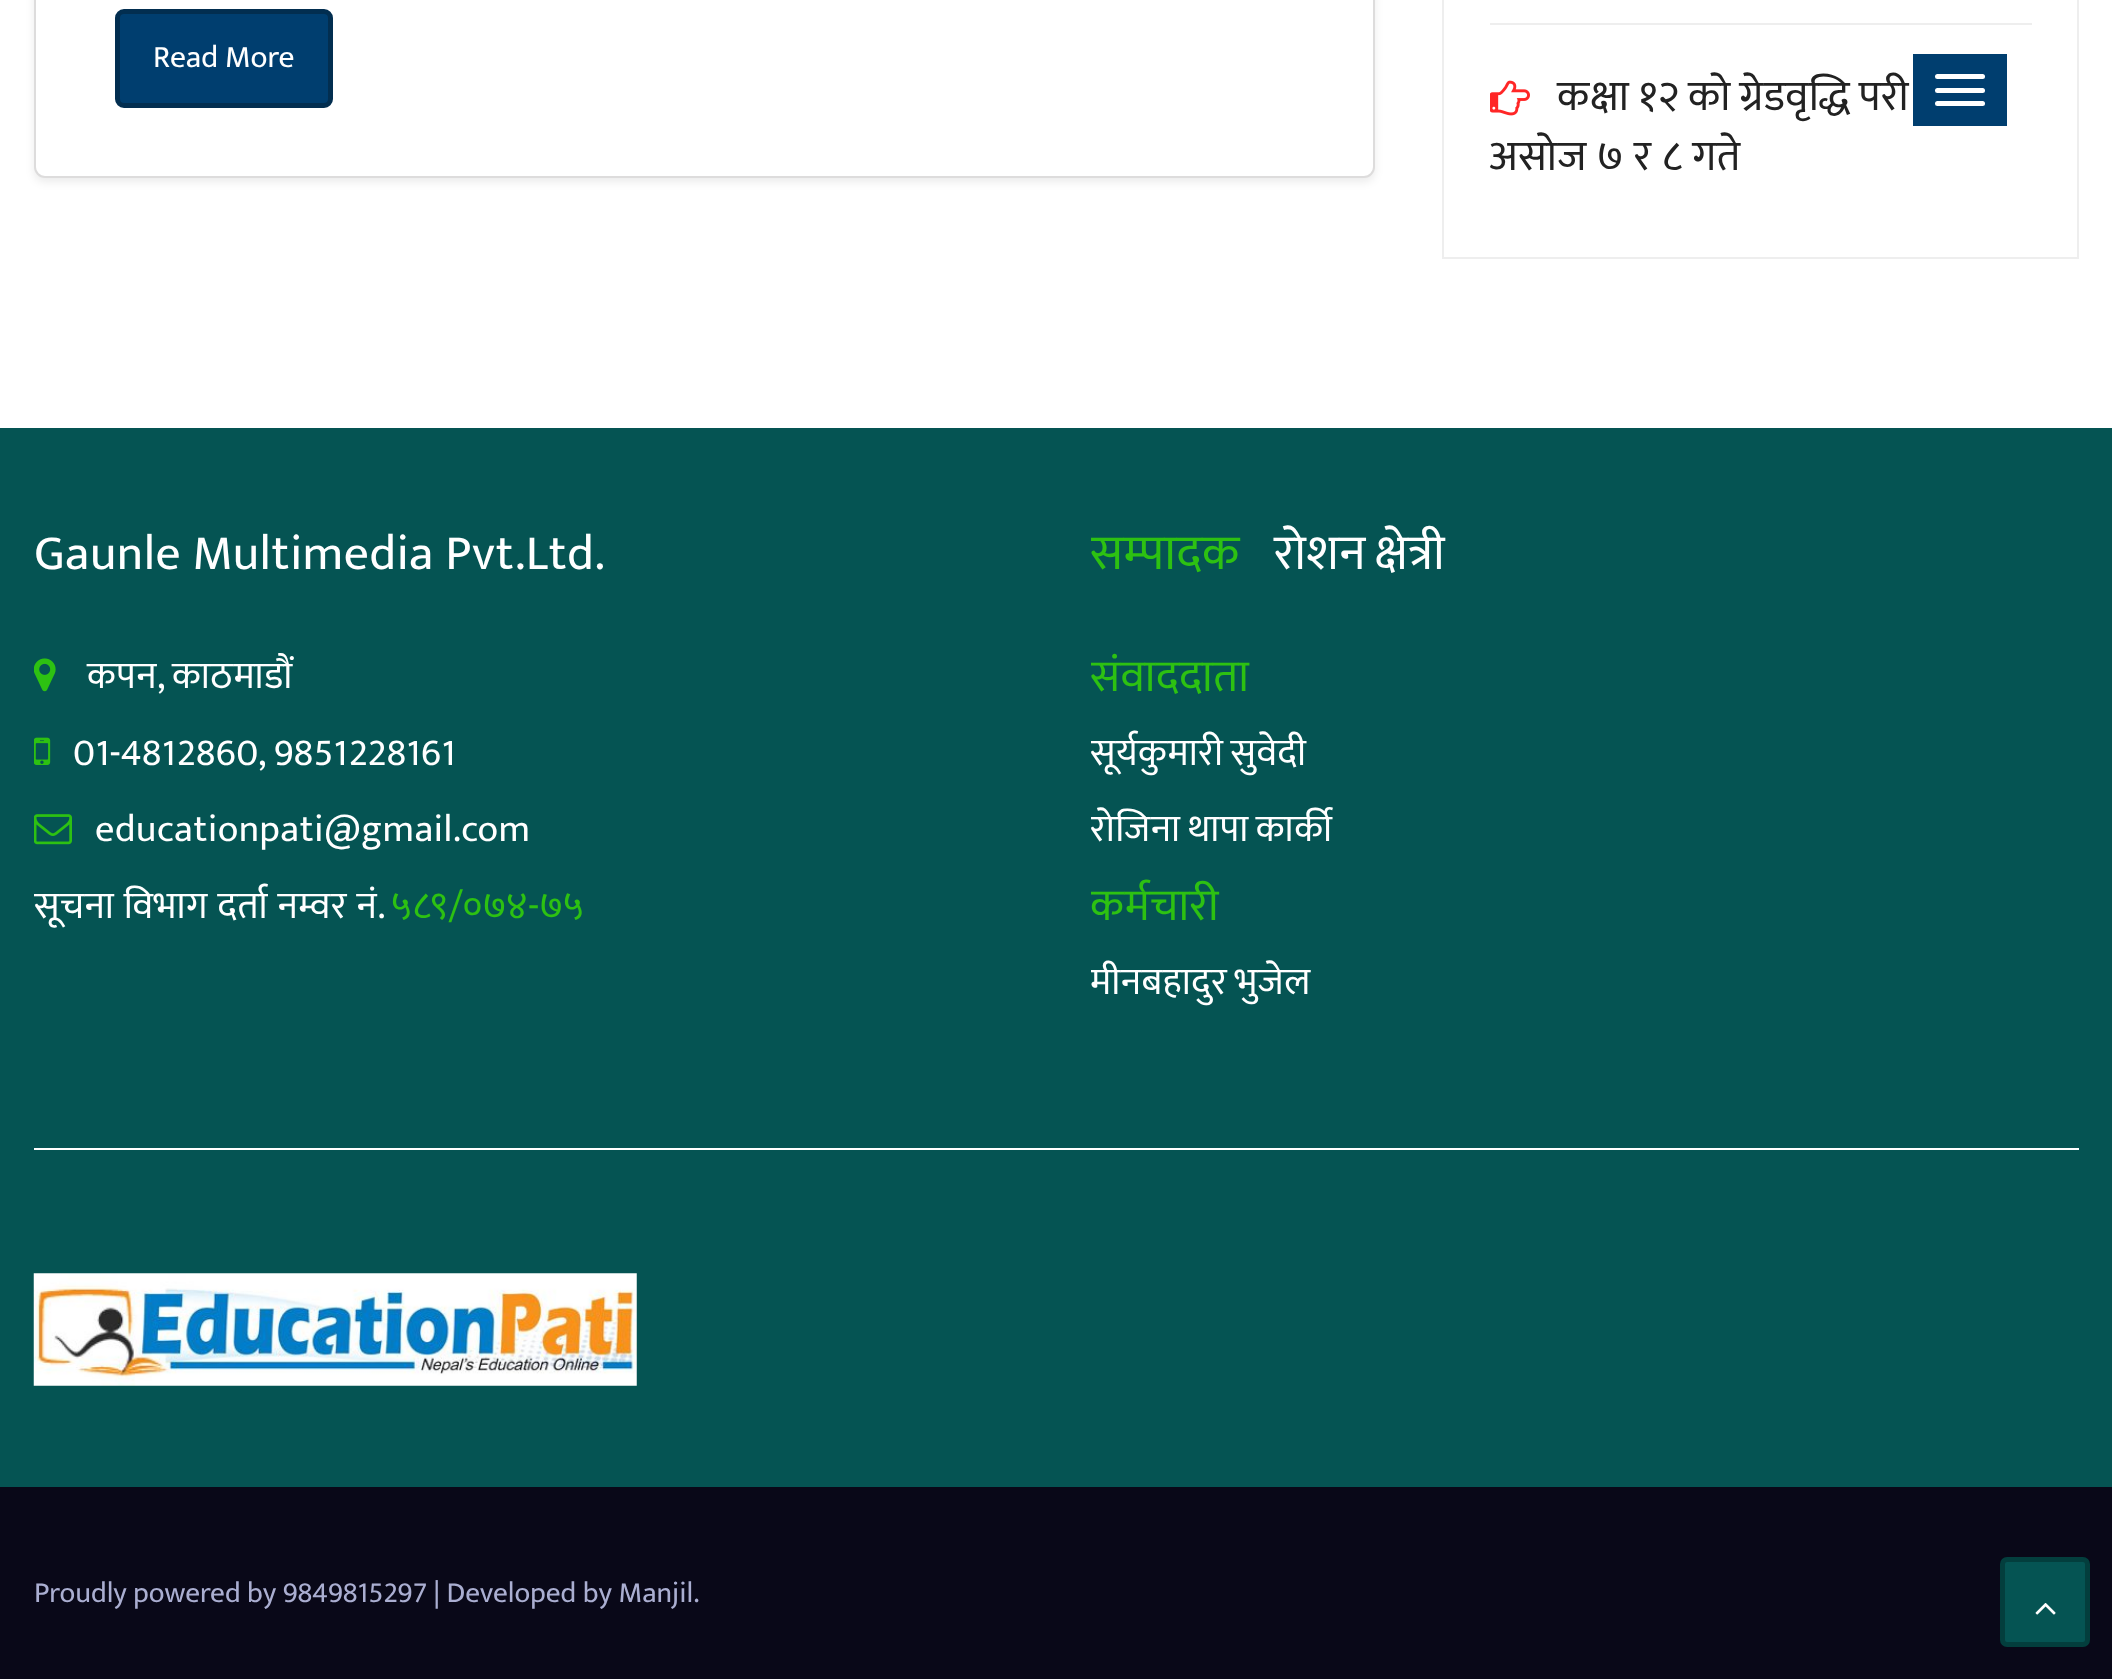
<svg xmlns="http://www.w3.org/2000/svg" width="2112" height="1679">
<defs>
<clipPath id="clip1"><rect x="34" y="869" width="990" height="76"/></clipPath>
<clipPath id="clip2"><rect x="1091" y="518" width="988" height="76"/></clipPath>
<clipPath id="clip3"><rect x="1091" y="639" width="988" height="77"/></clipPath>
<clipPath id="clip4"><rect x="1091" y="716" width="988" height="76"/></clipPath>
<clipPath id="clip5"><rect x="1091" y="792" width="988" height="77"/></clipPath>
<clipPath id="clip6"><rect x="1091" y="869" width="988" height="76"/></clipPath>
<clipPath id="clip7"><rect x="1091" y="945" width="988" height="77"/></clipPath>
</defs>
<rect width="100%" height="100%" fill="#fff"/>
<rect x="34" y="-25" width="1341" height="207" rx="11" fill="#00000014" filter="blur(4.5px)"/>
<rect x="35" y="-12" width="1339" height="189" rx="10" fill="#fff" stroke="#dddcdc" stroke-width="2"/>
<rect x="117.5" y="11.5" width="213" height="94" rx="6.5" fill="#003e6f" stroke="#022e50" stroke-width="5"/>
<text x="153" y="67" style="font-family:Ek Mukta;font-size:31.5px;fill:#fff">Read More</text>
<rect x="1443" y="-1" width="635" height="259" fill="none" stroke="#eee" stroke-width="2"/>
<rect x="1490" y="23" width="542" height="2" fill="#eee"/>
<image x="1490" y="80" width="40" height="36" href="media/1.png"/>
<text x="1557" y="110" word-spacing="-1.5" style="font-family:Ek Mukta;font-size:42.75px;letter-spacing:0.45px;fill:#222">कक्षा १२ को ग्रेडवृद्धि परी</text>
<text x="1489" y="170" style="font-family:Ek Mukta;font-size:42.75px;letter-spacing:0.45px;fill:#222">असोज ७ र ८ गते</text>
<rect x="1913" y="54" width="94" height="72" fill="#003e6f"/>
<rect x="1935" y="74" width="50" height="5" rx="2.5" fill="#fff"/>
<rect x="1935" y="88" width="50" height="5" rx="2.5" fill="#fff"/>
<rect x="1935" y="101" width="50" height="5" rx="2.5" fill="#fff"/>
<rect y="428" width="2112" height="1059" fill="#055453"/>
<text x="34" y="569" style="font-family:Ek Mukta;font-size:49.5px;letter-spacing:0.45px;fill:#fff">Gaunle Multimedia Pvt.Ltd.</text>
<image x="34" y="658" width="22" height="34" href="media/2.png"/>
<text x="87" y="688" word-spacing="-1" style="font-family:Ek Mukta;font-size:38.25px;letter-spacing:0.45px;fill:#fff">कपन, काठमाडौं</text>
<image x="34" y="737" width="17" height="28" href="media/3.png"/>
<text x="73" y="765" style="font-family:Ek Mukta;font-size:38.25px;letter-spacing:0.45px;fill:#fff">01-4812860, 9851228161</text>
<image x="34" y="814" width="38" height="31" href="media/4.png"/>
<text x="95" y="841" style="font-family:Ek Mukta;font-size:38.25px;letter-spacing:0.45px;fill:#fff">educationpati@gmail.com</text>
<g clip-path="url(#clip1)">
<text x="34" y="918" word-spacing="0.5" style="font-family:Ek Mukta;font-size:38.25px;letter-spacing:0.45px;fill:#fff">सूचना विभाग दर्ता नम्वर नं.</text>
</g>
<text x="391" y="918" style="font-family:Ek Mukta;font-size:38.25px;letter-spacing:0.45px;fill:#2dc112">५८९/०७४-७५</text>
<g clip-path="url(#clip2)">
<text x="1090" y="569" style="font-family:Ek Mukta;font-size:49.5px;letter-spacing:0.45px;fill:#2dc112">सम्पादक</text>
</g>
<text x="1274" y="569" word-spacing="-3" style="font-family:Ek Mukta;font-size:49.5px;letter-spacing:0.45px;fill:#fff">रोशन क्षेत्री</text>
<g clip-path="url(#clip3)">
<text x="1090" y="691" style="font-family:Ek Mukta;font-size:45px;letter-spacing:0.45px;fill:#2dc112">संवाददाता</text>
</g>
<g clip-path="url(#clip4)">
<text x="1090" y="765" word-spacing="-2" style="font-family:Ek Mukta;font-size:38.25px;letter-spacing:0.45px;fill:#fff">सूर्यकुमारी सुवेदी</text>
</g>
<g clip-path="url(#clip5)">
<text x="1090" y="841" word-spacing="-2" style="font-family:Ek Mukta;font-size:38.25px;letter-spacing:0.45px;fill:#fff">रोजिना थापा कार्की</text>
</g>
<g clip-path="url(#clip6)">
<text x="1090" y="920" style="font-family:Ek Mukta;font-size:45px;letter-spacing:0.45px;fill:#2dc112">कर्मचारी</text>
</g>
<g clip-path="url(#clip7)">
<text x="1090" y="994" word-spacing="-2" style="font-family:Ek Mukta;font-size:38.25px;letter-spacing:0.45px;fill:#fff">मीनबहादुर भुजेल</text>
</g>
<rect x="34" y="1148" width="2045" height="2" fill="#fff"/>
<image x="33" y="1273" width="604" height="113" href="media/5.png"/>
<rect y="1487" width="2112" height="192" fill="#090818"/>
<text x="34" y="1602" style="font-family:Ek Mukta;font-size:29.25px;fill:#aaaed1">Proudly powered by 9849815297 | Developed by Manjil.</text>
<rect x="2002.5" y="1559.5" width="85" height="85" rx="4.5" fill="#055453" stroke="#033e3d" stroke-width="5"/>
<image x="2035" y="1603" width="21" height="12" href="media/6.png"/>
</svg>
